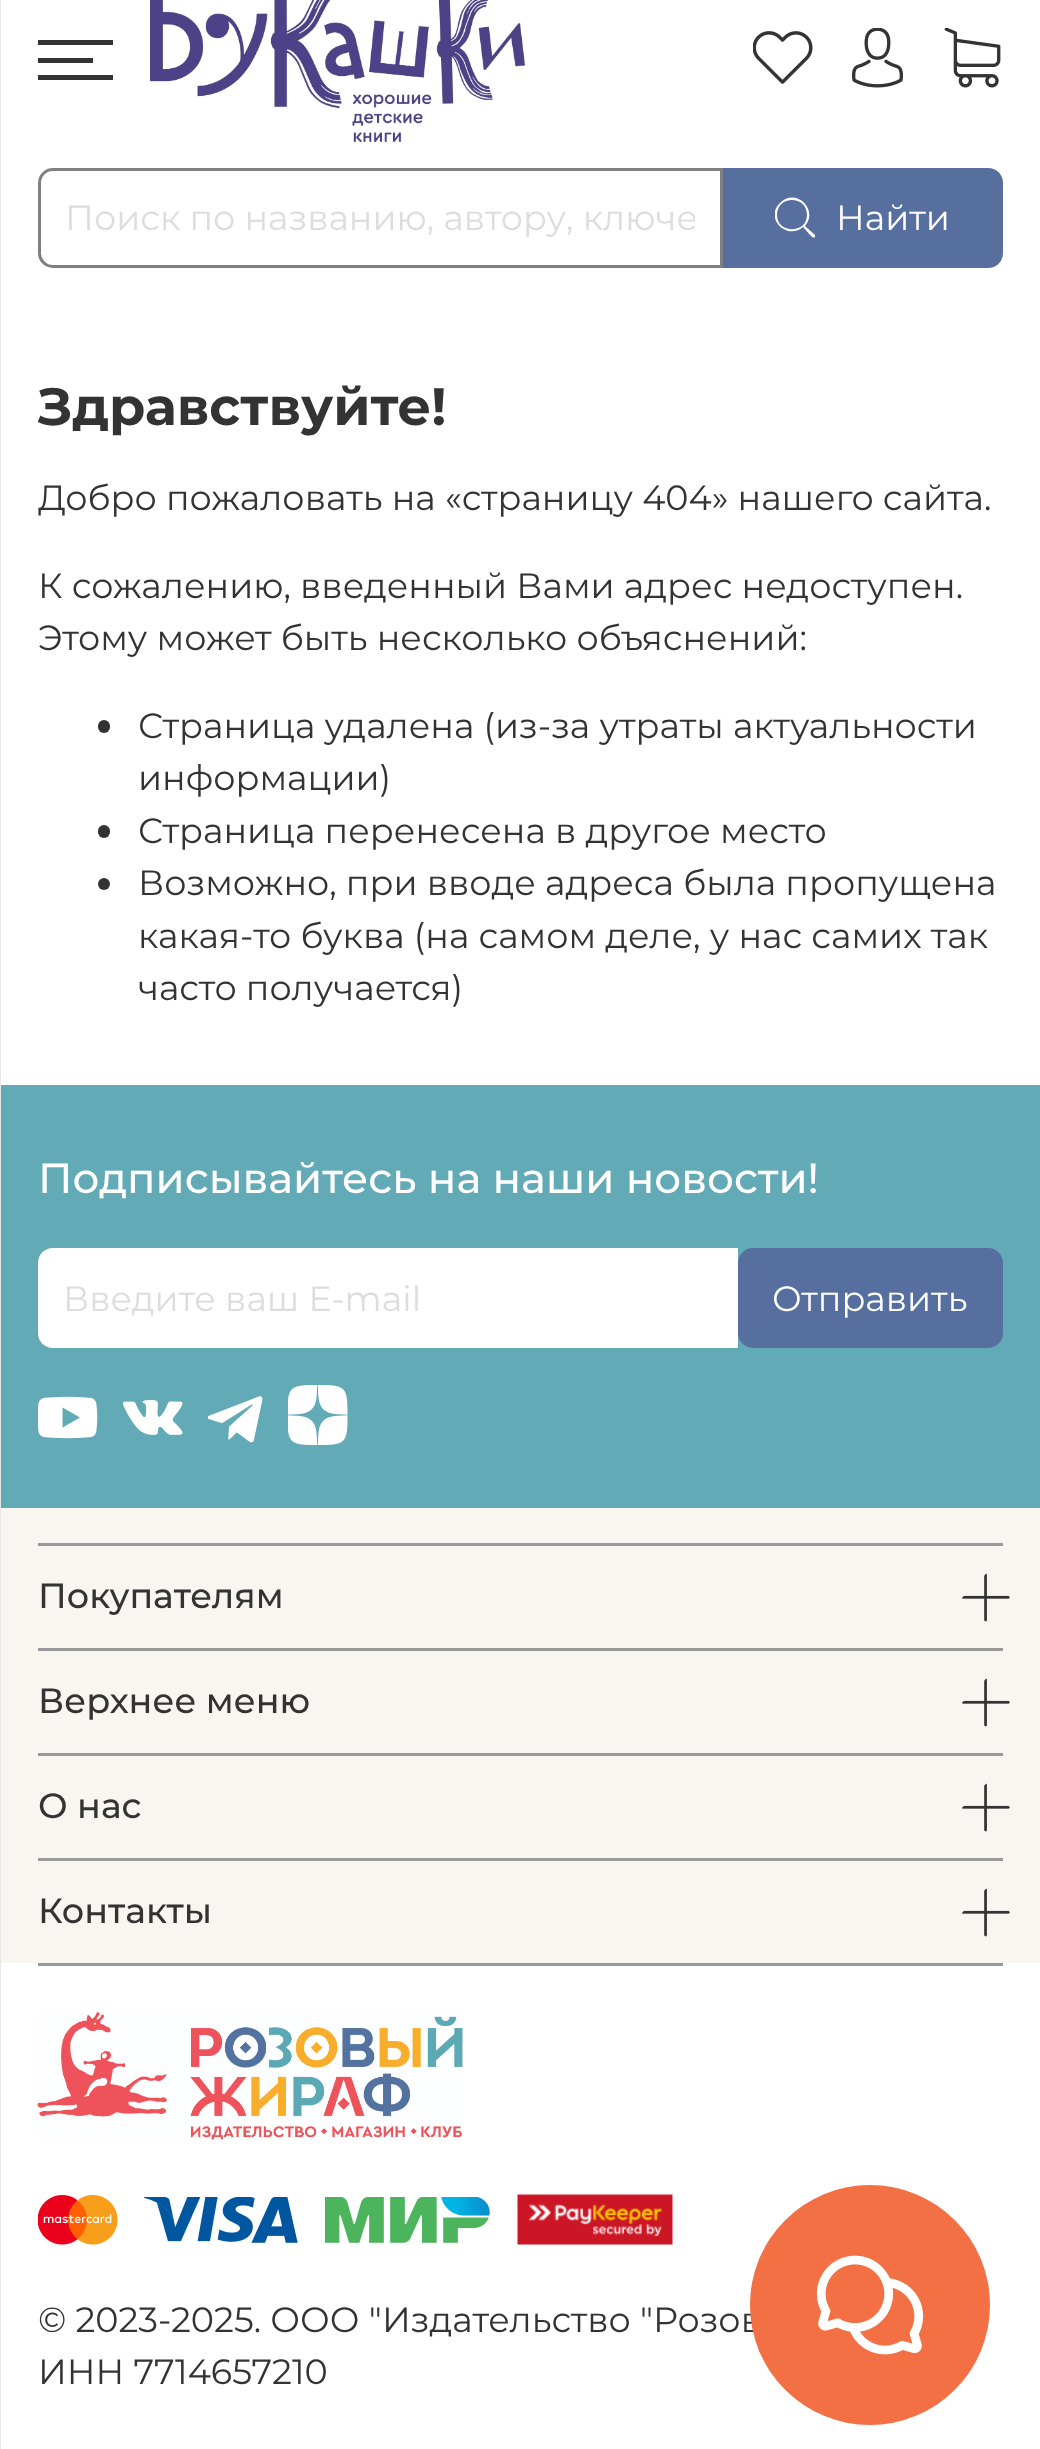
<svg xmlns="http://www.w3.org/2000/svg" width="1040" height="2449">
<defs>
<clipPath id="clip1"><rect x="65" y="195" width="630" height="45"/></clipPath>
<clipPath id="clip2"><rect x="775" y="178" width="40" height="80"/></clipPath>
</defs>
<rect width="100%" height="100%" fill="#fff"/>
<rect width="1" height="2449" fill="#e7e7e7"/>
<rect x="38" y="40" width="75" height="5" fill="#333"/>
<rect x="38" y="58" width="55" height="5" fill="#333"/>
<rect x="38" y="75" width="75" height="5" fill="#333"/>
<image x="150" y="0" width="375" height="142" href="media/1.png"/>
<image x="753" y="31" width="60" height="53" href="media/2.png"/>
<image x="852" y="28" width="51" height="60" href="media/3.png"/>
<image x="944" y="28" width="57" height="60" href="media/4.png"/>
<path d="M53 169.5h668.5v97h-668.5c-7.5 0-13.5-6-13.5-13.5v-70c0-7.5 6-13.5 13.5-13.5z" fill="none" stroke="#808080" stroke-width="3"/>
<g clip-path="url(#clip1)">
<text x="65" y="230" style="font-family:Montserrat;font-size:35px;fill:#ddd">Поиск по названию, автору, ключе</text>
</g>
<path d="M723 168h265c8.5 0 15 6.5 15 15v70c0 8.5-6.5 15-15 15h-265z" fill="#576f9f"/>
<g clip-path="url(#clip2)">
<path d="M815 235l-10-9c14-16-9-39-25-23c-16 15 7 38 23 24l8 9c4 3 5 1 4-1zm-38-20c0-20 30-20 30 0c0 19-30 19-30 0z" fill="#fff"/>
</g>
<text x="836" y="230" style="font-family:Montserrat;font-size:35px;fill:#fff">Найти</text>
<text x="38" y="425" style="font-family:Montserrat;font-size:52.5px;font-weight:bold;fill:#333">Здравствуйте!</text>
<text x="38" y="510" style="font-family:Montserrat;font-size:35px;fill:#333">Добро пожаловать на «страницу 404» нашего сайта.</text>
<text x="38" y="598" style="font-family:Montserrat;font-size:35px;fill:#333">К сожалению, введенный Вами адрес недоступен.</text>
<text x="38" y="650" style="font-family:Montserrat;font-size:35px;fill:#333">Этому может быть несколько объяснений:</text>
<rect x="98" y="720" width="12" height="13" rx="6" fill="#333"/>
<text x="138" y="738" style="font-family:Montserrat;font-size:35px;fill:#333">Страница удалена (из-за утраты актуальности</text>
<text x="138" y="790" style="font-family:Montserrat;font-size:35px;fill:#333">информации)</text>
<rect x="98" y="825" width="12" height="13" rx="6" fill="#333"/>
<text x="138" y="843" style="font-family:Montserrat;font-size:35px;fill:#333">Страница перенесена в другое место</text>
<circle cx="104" cy="884" r="6" fill="#333"/>
<text x="138" y="895" style="font-family:Montserrat;font-size:35px;fill:#333">Возможно, при вводе адреса была пропущена</text>
<text x="138" y="948" style="font-family:Montserrat;font-size:35px;fill:#333">какая-то буква (на самом деле, у нас самих так</text>
<text x="138" y="1000" style="font-family:Montserrat;font-size:35px;fill:#333">часто получается)</text>
<rect x="1" y="1085" width="1039" height="423" fill="#63aab7"/>
<text x="38" y="1193" style="font-family:Montserrat;font-size:42px;font-weight:500;fill:#fff">Подписывайтесь на наши новости!</text>
<path d="M53 1248h685v100h-685c-8.5 0-15-6.5-15-15v-70c0-8.5 6.5-15 15-15z" fill="#fff"/>
<text x="63" y="1311" style="font-family:Montserrat;font-size:35px;fill:#ddd">Введите ваш E-mail</text>
<rect x="738" y="1248" width="265" height="100" rx="15" fill="#576f9f"/>
<text x="772" y="1311" style="font-family:Montserrat;font-size:35px;fill:#fff">Отправить</text>
<image x="38" y="1396" width="60" height="43" href="media/5.png"/>
<image x="123" y="1400" width="60" height="35" href="media/6.png"/>
<image x="208" y="1396" width="55" height="47" href="media/7.png"/>
<image x="288" y="1385" width="60" height="60" href="media/8.png"/>
<rect x="1" y="1508" width="1039" height="455" fill="#f9f6f1"/>
<rect x="38" y="1543" width="965" height="3" fill="#999"/>
<rect x="38" y="1648" width="965" height="3" fill="#999"/>
<text x="38" y="1608" style="font-family:Montserrat;font-size:35px;font-weight:500;fill:#333">Покупателям</text>
<image x="962" y="1573" width="48" height="49" href="media/9.png"/>
<rect x="38" y="1753" width="965" height="3" fill="#999"/>
<text x="38" y="1713" style="font-family:Montserrat;font-size:35px;font-weight:500;fill:#333">Верхнее меню</text>
<image x="962" y="1678" width="48" height="49" href="media/9.png"/>
<rect x="38" y="1858" width="965" height="3" fill="#999"/>
<text x="38" y="1818" style="font-family:Montserrat;font-size:35px;font-weight:500;fill:#333">О нас</text>
<image x="962" y="1783" width="48" height="49" href="media/9.png"/>
<rect x="38" y="1963" width="965" height="3" fill="#999"/>
<text x="38" y="1923" style="font-family:Montserrat;font-size:35px;font-weight:500;fill:#333">Контакты</text>
<image x="962" y="1888" width="48" height="49" href="media/9.png"/>
<image x="37" y="2012" width="426" height="128" href="media/10.png"/>
<image x="38" y="2195" width="80" height="50" href="media/11.png"/>
<image x="144" y="2197" width="154" height="46" href="media/12.png"/>
<image x="325" y="2197" width="165" height="46" href="media/13.png"/>
<image x="517" y="2194" width="156" height="51" href="media/14.png"/>
<text x="38" y="2332" style="font-family:Montserrat;font-size:35px;fill:#333">© 2023-2025. ООО "Издательство "Розов</text>
<text x="38" y="2384" style="font-family:Montserrat;font-size:35px;fill:#333">ИНН 7714657210</text>
<circle cx="870" cy="2305" r="120" fill="#f36f44"/>
<image x="816" y="2255" width="108" height="100" href="media/15.png"/>
</svg>
